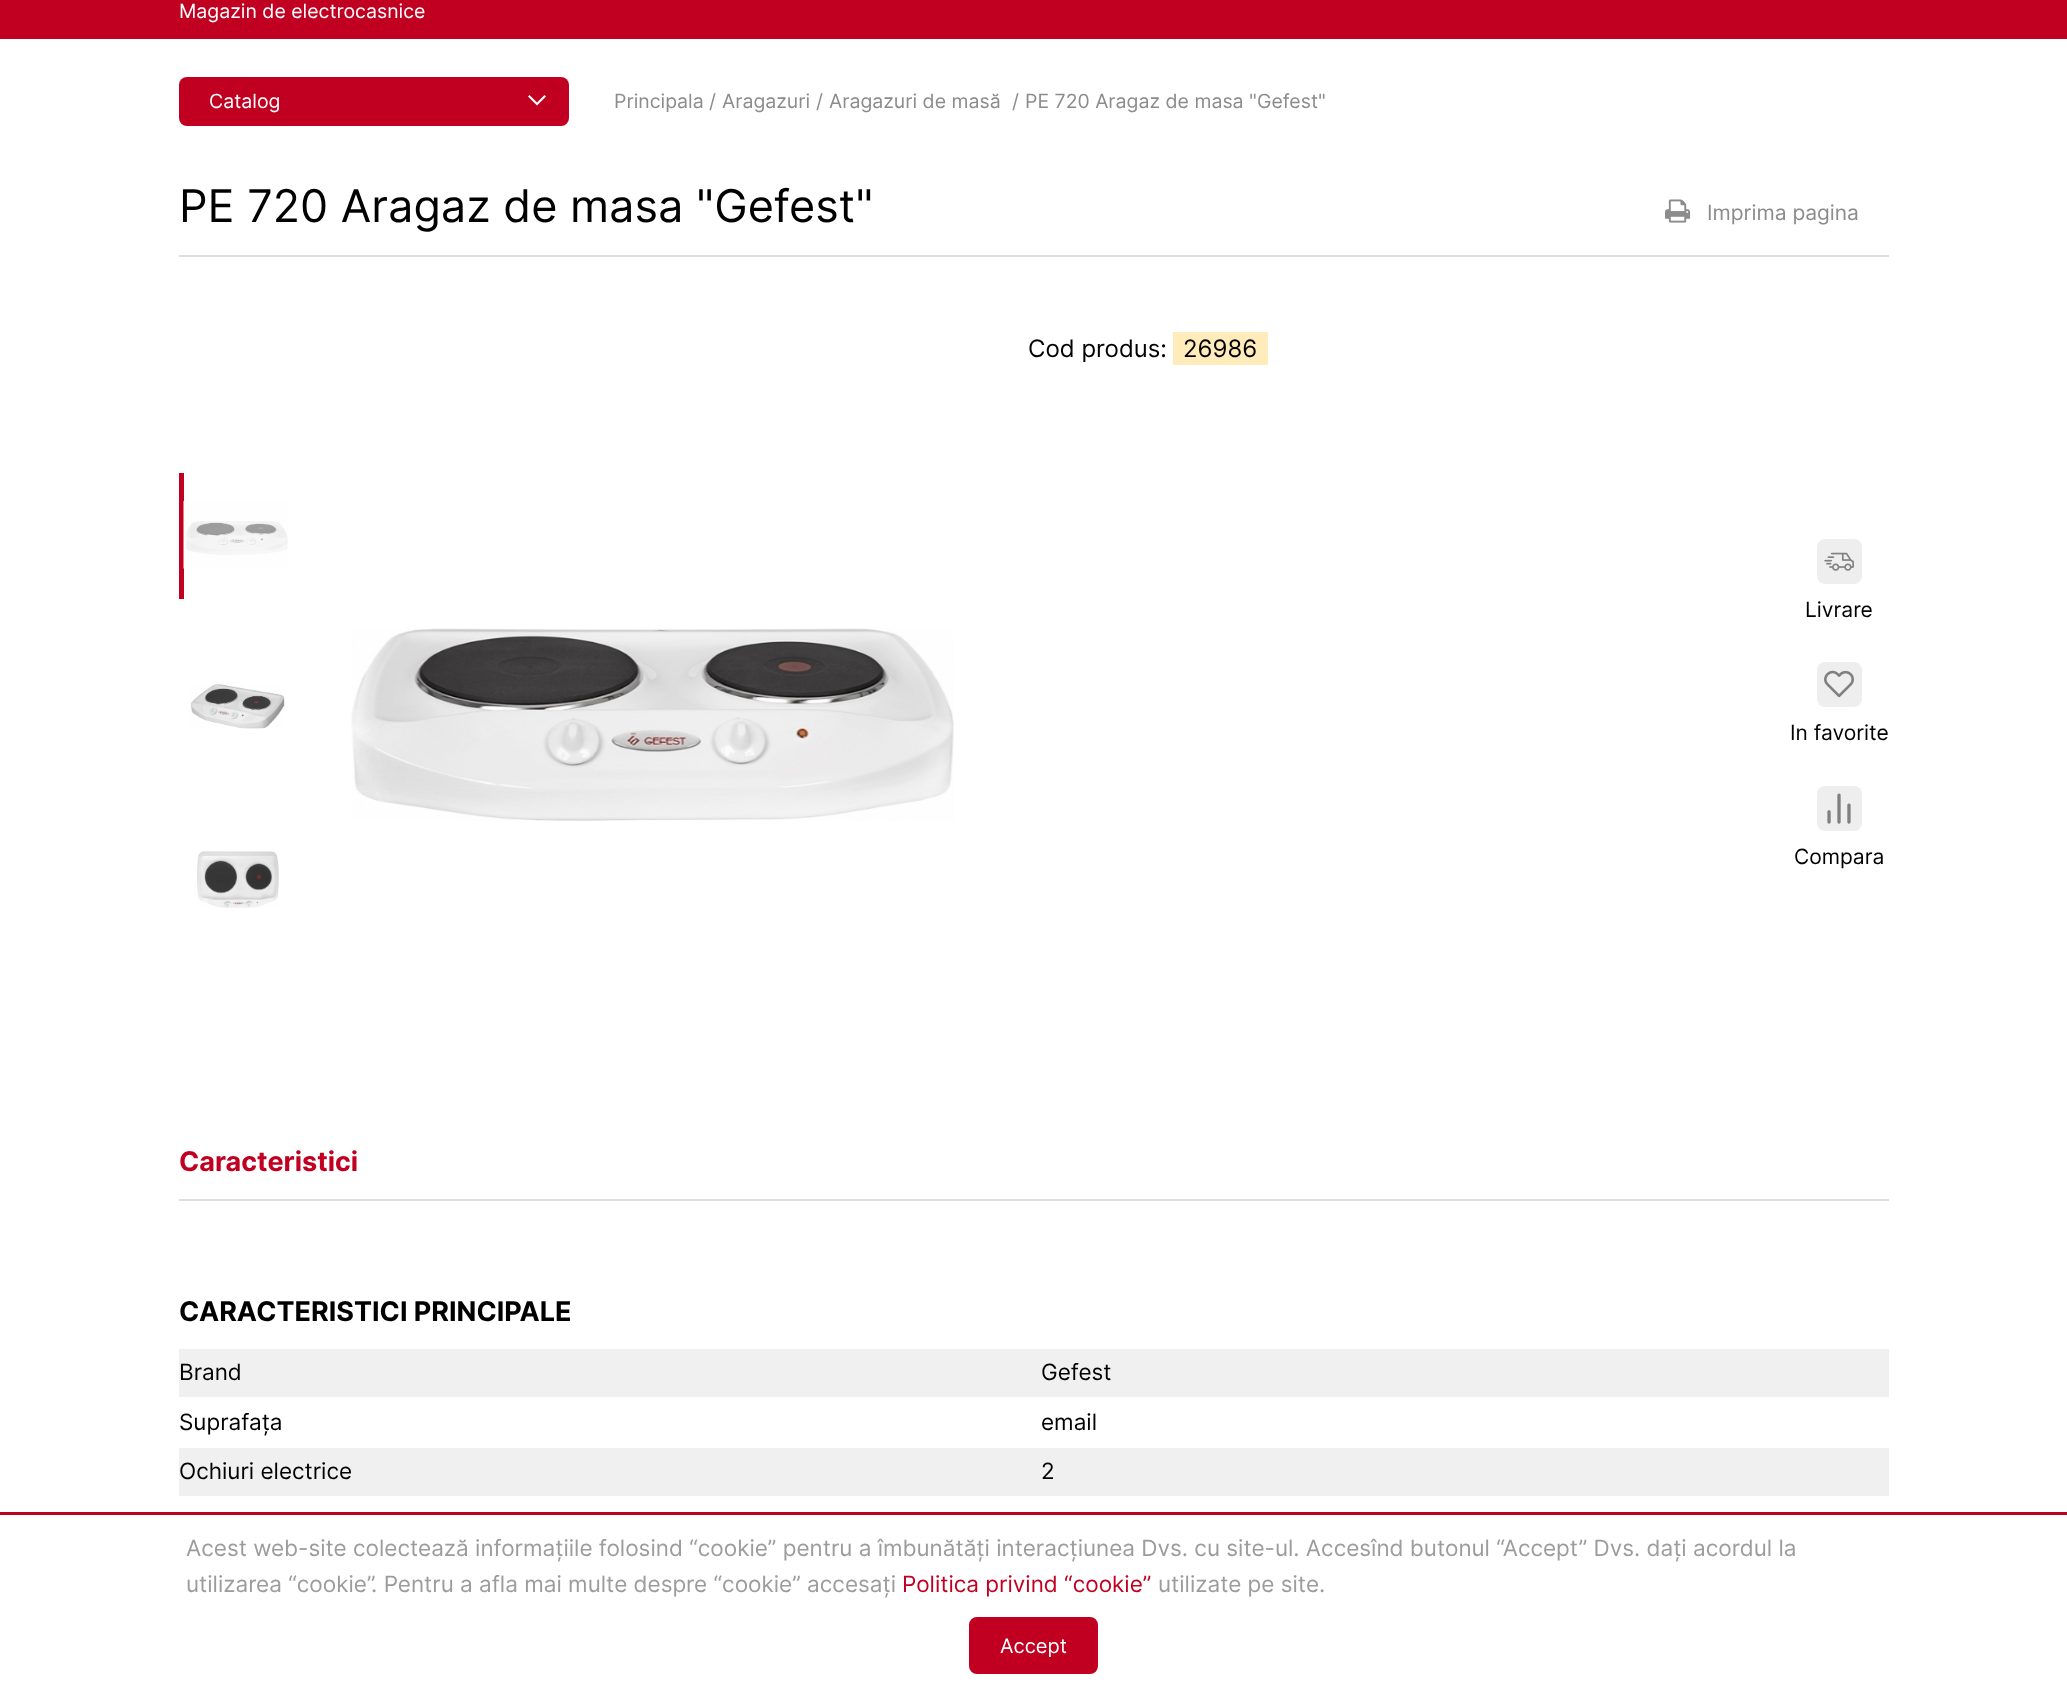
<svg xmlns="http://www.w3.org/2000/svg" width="2067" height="1703">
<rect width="100%" height="100%" fill="#fff"/>
<rect width="2067" height="39" fill="#c10021"/>
<text x="179" y="18" style="font-family:Inter;font-size:19.5px;fill:#fff">Magazin de electrocasnice</text>
<rect x="179" y="77" width="390" height="49" rx="8" fill="#c10021"/>
<text x="209" y="108" style="font-family:Inter;font-size:19.5px;fill:#fff">Catalog</text>
<path d="M546 96.5l-9 9l-9-9l1.5-1.5l7.5 7.5l7.5-7.5z" fill="#fff"/>
<text x="614" y="108" style="font-family:Inter;font-size:19.5px;fill:#8c8c8c">Principala</text>
<text x="709" y="108" style="font-family:Inter;font-size:19.5px;fill:#8c8c8c">/</text>
<text x="722" y="108" style="font-family:Inter;font-size:19.5px;fill:#8c8c8c">Aragazuri</text>
<text x="816" y="108" style="font-family:Inter;font-size:19.5px;fill:#8c8c8c">/</text>
<text x="829" y="108" style="font-family:Inter;font-size:19.5px;fill:#8c8c8c">Aragazuri de masă</text>
<text x="1012" y="108" style="font-family:Inter;font-size:19.5px;fill:#8c8c8c">/</text>
<text x="1025" y="108" style="font-family:Inter;font-size:19.5px;fill:#8c8c8c">PE 720 Aragaz de masa "Gefest"</text>
<rect x="179" y="255" width="1710" height="2" fill="#dedede"/>
<text x="179" y="222" style="font-family:Inter;font-size:45px;fill:#000">PE 720 Aragaz de masa "Gefest"</text>
<image x="1665" y="199" width="26" height="24" href="media/1.png"/>
<text x="1707" y="220" style="font-family:Inter;font-size:21px;fill:#8c8c8c">Imprima pagina</text>
<text x="1028" y="357" style="font-family:Inter;font-size:24px;fill:#000">Cod produs:</text>
<rect x="1173" y="332" width="95" height="33" fill="#ffecba"/>
<text x="1183" y="357" style="font-family:Inter;font-size:24px;fill:#000">26986</text>
<rect x="179" y="473" width="5" height="126" fill="#c10021"/>
<image x="183" y="501" width="105" height="68" href="media/2.png"/>
<image x="190" y="684" width="95" height="45" href="media/3.png"/>
<image x="197" y="851" width="82" height="57" href="media/4.png"/>
<image x="351" y="628" width="603" height="193" href="media/5.png"/>
<rect x="1817" y="539" width="45" height="45" rx="8" fill="#eee"/>
<image x="1824" y="552" width="30" height="19" href="media/6.png"/>
<text x="1805" y="617" style="font-family:Inter;font-size:21px;fill:#000">Livrare</text>
<rect x="1817" y="662" width="45" height="45" rx="8" fill="#eee"/>
<image x="1824" y="670" width="30" height="28" href="media/7.png"/>
<text x="1790" y="740" style="font-family:Inter;font-size:21px;fill:#000">In favorite</text>
<rect x="1817" y="786" width="45" height="45" rx="8" fill="#eee"/>
<image x="1827" y="793" width="24" height="31" href="media/8.png"/>
<text x="1794" y="864" style="font-family:Inter;font-size:21px;fill:#000">Compara</text>
<text x="179" y="1171" style="font-family:Inter;font-size:27px;font-weight:bold;fill:#c10021">Caracteristici</text>
<rect x="179" y="1199" width="1710" height="2" fill="#dedede"/>
<text x="179" y="1321" style="font-family:Inter;font-size:27px;font-weight:bold;fill:#000">CARACTERISTICI PRINCIPALE</text>
<rect x="179" y="1349" width="1710" height="48" fill="#f0f0f0"/>
<text x="179" y="1380" style="font-family:Inter;font-size:22.5px;fill:#000">Brand</text>
<text x="1041" y="1380" style="font-family:Inter;font-size:22.5px;fill:#000">Gefest</text>
<text x="179" y="1430" style="font-family:Inter;font-size:22.5px;fill:#000">Suprafața</text>
<text x="1041" y="1430" style="font-family:Inter;font-size:22.5px;fill:#000">email</text>
<rect x="179" y="1448" width="1710" height="48" fill="#f0f0f0"/>
<text x="179" y="1479" style="font-family:Inter;font-size:22.5px;fill:#000">Ochiuri electrice</text>
<text x="1041" y="1479" style="font-family:Inter;font-size:22.5px;fill:#000">2</text>
<rect y="1512" width="2067" height="3" fill="#c10021"/>
<text x="186" y="1556" style="font-family:Inter;font-size:22.5px;fill:#9c9c9c">Acest web-site colectează informațiile folosind “cookie” pentru a îmbunătăți interacțiunea Dvs. cu site-ul. Accesînd butonul “Accept” Dvs. dați acordul la</text>
<text x="186" y="1592" style="font-family:Inter;font-size:22.5px;fill:#9c9c9c">utilizarea “cookie”. Pentru a afla mai multe despre “cookie” accesați</text>
<text x="902" y="1592" style="font-family:Inter;font-size:22.5px;fill:#c10021">Politica privind “cookie”</text>
<text x="1158" y="1592" style="font-family:Inter;font-size:22.5px;fill:#9c9c9c">utilizate pe site.</text>
<rect x="970" y="1618" width="127" height="55" rx="7" fill="#c10021" stroke="#c10021" stroke-width="2"/>
<text x="1000" y="1653" style="font-family:Inter;font-size:20px;fill:#fff">Accept</text>
</svg>
